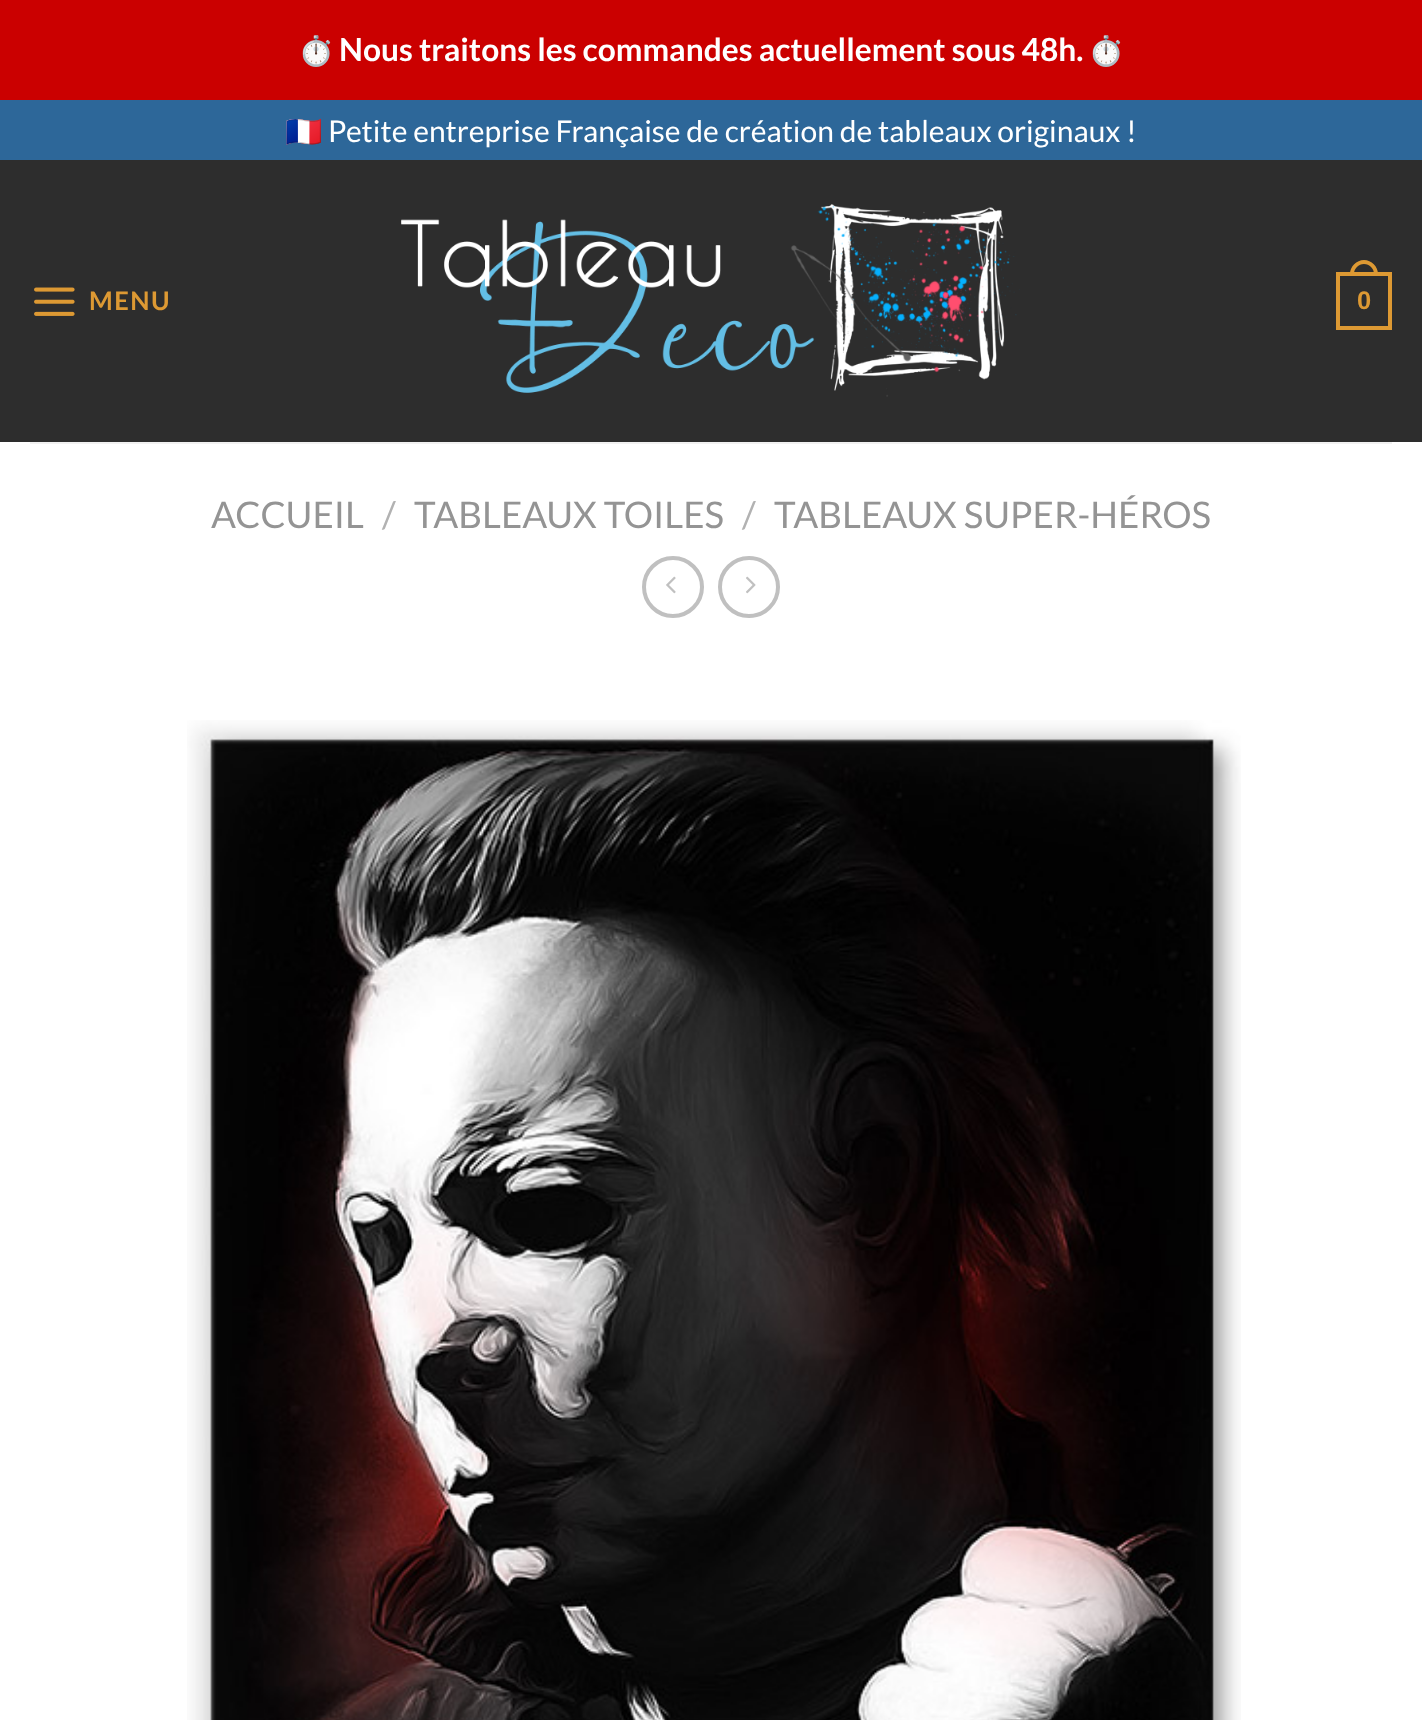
<svg xmlns="http://www.w3.org/2000/svg" width="1422" height="1720">
<rect width="100%" height="100%" fill="#fff"/>
<rect width="1422" height="100" fill="#cb0000"/>
<text x="298" y="61" style="font-family:Noto Color Emoji;font-size:29px;fill:#fff">⏱️</text>
<text x="339" y="61" style="font-family:Lato;font-size:31.7px;font-weight:bold;fill:#fff">Nous traitons les commandes actuellement sous 48h.</text>
<text x="1088" y="61" style="font-family:Noto Color Emoji;font-size:29px;fill:#fff">⏱️</text>
<rect y="100" width="1422" height="60" fill="#2d6799"/>
<text x="285" y="142" style="font-family:Noto Color Emoji;font-size:30px;fill:#fff">🇫🇷</text>
<text x="328" y="142" style="font-family:Lato;font-size:30px;fill:#fff">Petite entreprise Française de création de tableaux originaux !</text>
<rect y="160" width="1422" height="282" fill="#2d2d2d"/>
<image x="34" y="287" width="41" height="29" href="media/1.png"/>
<text x="89" y="310" style="font-family:Lato;font-size:25.5px;font-weight:bold;letter-spacing:1.5px;fill:#d93">MENU</text>
<image x="401" y="204" width="619" height="193" href="media/2.png"/>
<rect x="1338" y="274" width="52" height="54" fill="none" stroke="#d93" stroke-width="4"/>
<path d="M1364 260c7.5 0 14 6.5 14 14v2h-28v-2c0-7.5 6.5-14 14-14zm0 4c5.5 0 10 4.5 10 10v2h-20v-2c0-5.5 4.5-10 10-10z" fill="#d93" fill-rule="evenodd"/>
<text x="1357" y="309" style="font-family:Liberation Sans;font-size:25.5px;font-weight:bold;fill:#d93">0</text>
<rect x="30" y="442" width="1362" height="2" fill="#f1f1f1"/>
<text x="211" y="528" style="font-family:Lato;font-size:36.75px;fill:#949494">ACCUEIL</text>
<text x="382" y="528" style="font-family:Lato;font-size:36.75px;fill:#b2b2b2">/</text>
<text x="414" y="528" style="font-family:Lato;font-size:36.75px;fill:#949494">TABLEAUX TOILES</text>
<text x="742" y="528" style="font-family:Lato;font-size:36.75px;fill:#b2b2b2">/</text>
<text x="774" y="528" style="font-family:Lato;font-size:36.75px;fill:#949494">TABLEAUX SUPER-HÉROS</text>
<circle cx="673" cy="587" r="29" fill="none" stroke="#c0c0c0" stroke-width="4"/>
<image x="666" y="576" width="10" height="18" href="media/3.png"/>
<circle cx="749" cy="587" r="29" fill="none" stroke="#c0c0c0" stroke-width="4"/>
<image x="746" y="576" width="10" height="18" href="media/4.png"/>
<image x="187" y="720" width="1054" height="1000" href="media/5.png"/>
</svg>
